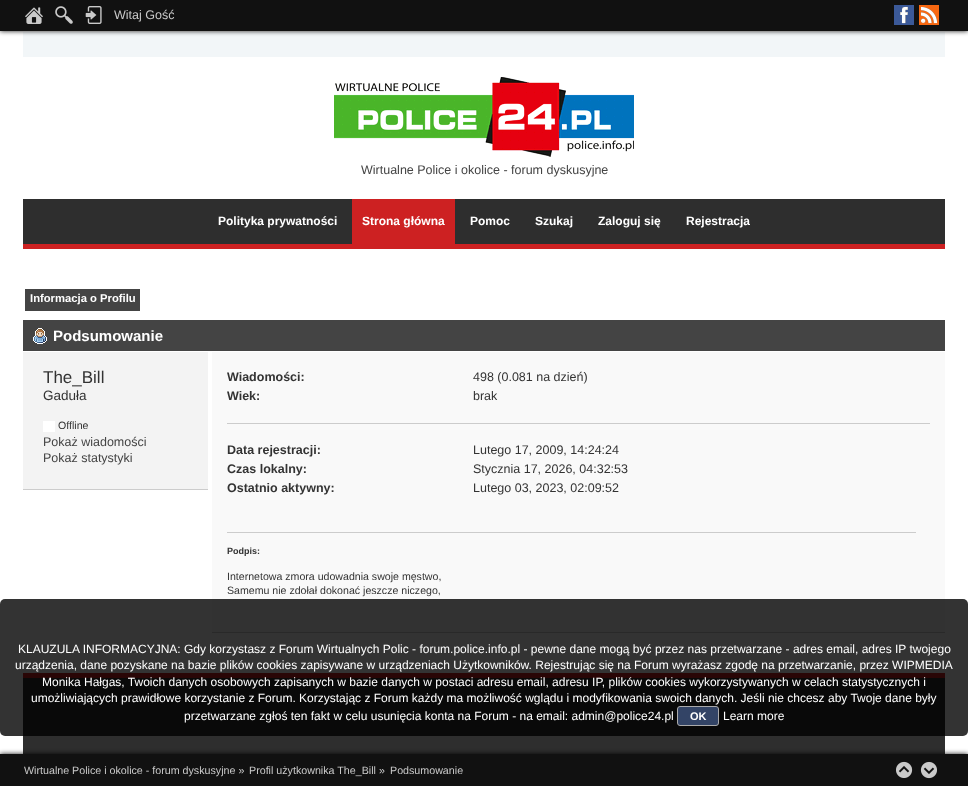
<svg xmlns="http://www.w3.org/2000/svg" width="968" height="786">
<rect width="100%" height="100%" fill="#fff"/>
<rect x="23" y="32" width="922" height="25" fill="#f2f6f8"/>
<rect width="968" height="31" fill="#000000e6" filter="blur(2.5px)"/>
<rect width="968" height="31" fill="#111"/>
<image x="25" y="7" width="18" height="17" href="media/1.png"/>
<image x="55" y="6" width="18" height="18" href="media/2.png"/>
<image x="85" y="6" width="17" height="18" href="media/3.png"/>
<text x="114" y="19" style="font-family:Liberation Sans;font-size:12.5px;fill:#cacaca">Witaj Gość</text>
<rect x="894" y="5" width="20" height="20" fill="#3b5998"/>
<image x="900" y="6" width="8" height="18" href="media/4.png"/>
<rect x="919" y="5" width="20" height="20" fill="#f86811"/>
<image x="920" y="6" width="18" height="18" href="media/5.png"/>
<image x="334" y="77" width="300" height="80" href="media/6.png"/>
<text x="361" y="174" style="font-family:Liberation Sans;font-size:12.5px;fill:#444">Wirtualne Police i okolice - forum dyskusyjne</text>
<rect x="23" y="199" width="922" height="45" fill="#2e2e2e"/>
<rect x="23" y="244" width="922" height="5" fill="#cd2122"/>
<text x="218" y="225" style="font-family:Liberation Sans;font-size:12px;font-weight:bold;fill:#fff">Polityka prywatności</text>
<rect x="352" y="199" width="103" height="45" fill="#cd2122"/>
<text x="362" y="225" style="font-family:Liberation Sans;font-size:12px;font-weight:bold;fill:#fff">Strona główna</text>
<text x="470" y="225" style="font-family:Liberation Sans;font-size:12px;font-weight:bold;fill:#fff">Pomoc</text>
<text x="535" y="225" style="font-family:Liberation Sans;font-size:12px;font-weight:bold;fill:#fff">Szukaj</text>
<text x="598" y="225" style="font-family:Liberation Sans;font-size:12px;font-weight:bold;fill:#fff">Zaloguj się</text>
<text x="686" y="225" style="font-family:Liberation Sans;font-size:12px;font-weight:bold;fill:#fff">Rejestracja</text>
<rect x="25" y="289" width="115" height="22" fill="#444"/>
<text x="30" y="302" style="font-family:Liberation Sans;font-size:11.25px;font-weight:bold;fill:#fff">Informacja o Profilu</text>
<rect x="23" y="320" width="922" height="31" fill="#444"/>
<image x="33" y="328" width="14" height="16" href="media/7.png"/>
<text x="53" y="341" style="font-family:Liberation Sans;font-size:15px;font-weight:bold;fill:#fff">Podsumowanie</text>
<rect x="23" y="352" width="185" height="137" fill="#f3f3f3"/>
<text x="43" y="383" style="font-family:Liberation Sans;font-size:17px;fill:#333">The_Bill</text>
<text x="43" y="400" style="font-family:Liberation Sans;font-size:13.5px;fill:#333">Gaduła</text>
<rect x="43" y="421" width="12" height="11" fill="#fff"/>
<text x="58" y="429" style="font-family:Liberation Sans;font-size:10.6px;fill:#333">Offline</text>
<text x="43" y="446" style="font-family:Liberation Sans;font-size:12.5px;fill:#444">Pokaż wiadomości</text>
<text x="43" y="462" style="font-family:Liberation Sans;font-size:12.5px;fill:#444">Pokaż statystyki</text>
<rect x="23" y="489" width="185" height="1" fill="#ccc"/>
<rect x="212" y="352" width="733" height="280" fill="#f9f9f9"/>
<rect x="227" y="423" width="703" height="1" fill="#ccc"/>
<text x="227" y="381" style="font-family:Liberation Sans;font-size:12.5px;font-weight:bold;fill:#333">Wiadomości:</text>
<text x="473" y="381" style="font-family:Liberation Sans;font-size:12.5px;fill:#333">498 (0.081 na dzień)</text>
<text x="227" y="400" style="font-family:Liberation Sans;font-size:12.5px;font-weight:bold;fill:#333">Wiek:</text>
<text x="473" y="400" style="font-family:Liberation Sans;font-size:12.5px;fill:#333">brak</text>
<text x="227" y="454" style="font-family:Liberation Sans;font-size:12.5px;font-weight:bold;fill:#333">Data rejestracji:</text>
<text x="473" y="454" style="font-family:Liberation Sans;font-size:12.5px;fill:#333">Lutego 17, 2009, 14:24:24</text>
<text x="227" y="473" style="font-family:Liberation Sans;font-size:12.5px;font-weight:bold;fill:#333">Czas lokalny:</text>
<text x="473" y="473" style="font-family:Liberation Sans;font-size:12.5px;fill:#333">Stycznia 17, 2026, 04:32:53</text>
<text x="227" y="492" style="font-family:Liberation Sans;font-size:12.5px;font-weight:bold;fill:#333">Ostatnio aktywny:</text>
<text x="473" y="492" style="font-family:Liberation Sans;font-size:12.5px;fill:#333">Lutego 03, 2023, 02:09:52</text>
<rect x="227" y="532" width="689" height="1" fill="#ccc"/>
<text x="227" y="554" style="font-family:Liberation Sans;font-size:9px;font-weight:bold;fill:#333">Podpis:</text>
<text x="227" y="580" style="font-family:Liberation Sans;font-size:10.6px;fill:#333">Internetowa zmora udowadnia swoje męstwo,</text>
<text x="227" y="594" style="font-family:Liberation Sans;font-size:10.6px;fill:#333">Samemu nie zdołał dokonać jeszcze niczego,</text>
<rect x="212" y="632" width="733" height="1" fill="#ccc"/>
<rect x="23" y="678" width="922" height="76" fill="#2e2e2e"/>
<rect x="23" y="673" width="922" height="5" fill="#cd2122"/>
<rect y="599" width="968" height="137" rx="5" fill="#000000cc"/>
<text x="18" y="653" style="font-family:Liberation Sans;font-size:12px;fill:#fff">KLAUZULA INFORMACYJNA: Gdy korzystasz z Forum Wirtualnych Polic - forum.police.info.pl - pewne dane mogą być przez nas przetwarzane - adres email, adres IP twojego</text>
<text x="15" y="669" style="font-family:Liberation Sans;font-size:12px;fill:#fff">urządzenia, dane pozyskane na bazie plików cookies zapisywane w urządzeniach Użytkowników. Rejestrując się na Forum wyrażasz zgodę na przetwarzanie, przez WIPMEDIA</text>
<text x="42" y="686" style="font-family:Liberation Sans;font-size:12px;fill:#fff">Monika Hałgas, Twoich danych osobowych zapisanych w bazie danych w postaci adresu email, adresu IP, plików cookies wykorzystywanych w celach statystycznych i</text>
<text x="31" y="702" style="font-family:Liberation Sans;font-size:12px;fill:#fff">umożliwiających prawidłowe korzystanie z Forum. Korzystając z Forum każdy ma możliwość wglądu i modyfikowania swoich danych. Jeśli nie chcesz aby Twoje dane były</text>
<text x="184" y="720" style="font-family:Liberation Sans;font-size:12px;fill:#fff">przetwarzane zgłoś ten fakt w celu usunięcia konta na Forum - na email: admin@police24.pl</text>
<rect x="677.5" y="706.5" width="41" height="19" rx="2.5" fill="#346" stroke="#aaa"/>
<text x="690" y="720" style="font-family:Liberation Sans;font-size:11px;font-weight:bold;fill:#fff">OK</text>
<text x="723" y="720" style="font-family:Liberation Sans;font-size:12px;fill:#fff">Learn more</text>
<rect y="754" width="968" height="32" fill="#000000e6" filter="blur(2.5px)"/>
<rect y="754" width="968" height="32" fill="#111"/>
<text x="24" y="774" style="font-family:Liberation Sans;font-size:10.7px;fill:#cacaca">Wirtualne Police i okolice - forum dyskusyjne »</text>
<text x="249" y="774" style="font-family:Liberation Sans;font-size:10.7px;fill:#cacaca">Profil użytkownika The_Bill »</text>
<text x="390" y="774" style="font-family:Liberation Sans;font-size:10.7px;fill:#cacaca">Podsumowanie</text>
<image x="896" y="761" width="17" height="17" href="media/8.png"/>
<image x="920" y="761" width="17" height="18" href="media/9.png"/>
</svg>
